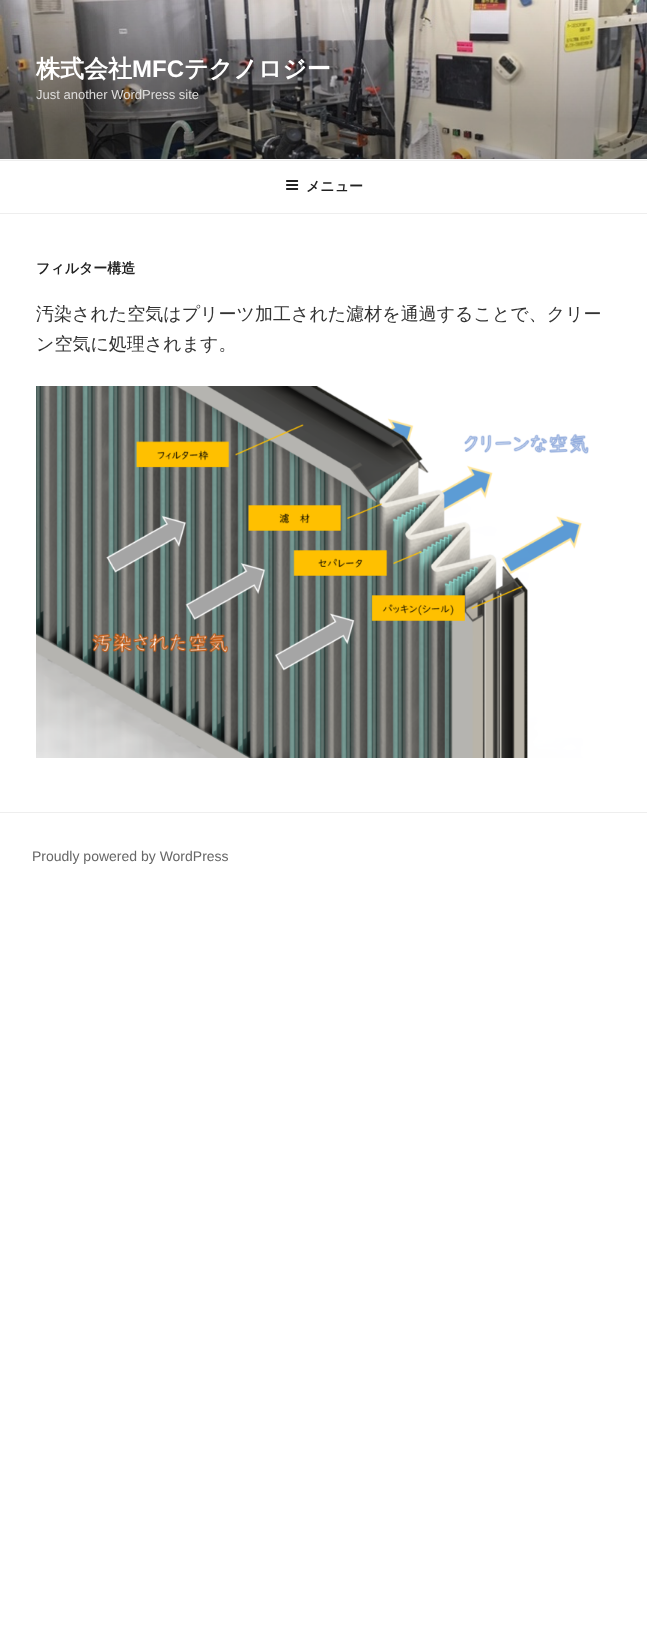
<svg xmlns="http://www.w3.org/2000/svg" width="647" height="1626">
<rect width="100%" height="100%" fill="#fff"/>
<rect y="159" width="647" height="1" fill="#fafafa"/>
<image x="0" y="0" width="647" height="159" href="media/1.png"/>
<text x="36" y="77" style="font-family:WenQuanYi Zen Hei;font-size:24px;font-weight:bold;fill:#fff">株式会社</text>
<text x="132" y="77" style="font-family:Liberation Sans;font-size:24px;font-weight:bold;fill:#fff">MFC</text>
<text x="184" y="77" style="font-family:WenQuanYi Zen Hei;font-size:24px;font-weight:bold;fill:#fff">テクノロジー</text>
<text x="36" y="99" style="font-family:Liberation Sans;font-size:13px;fill:#dedddc">Just another WordPress site</text>
<rect y="160" width="647" height="1" fill="#eee"/>
<rect y="213" width="647" height="1" fill="#eee"/>
<image x="286" y="180" width="13" height="10" href="media/2.png"/>
<text x="306" y="191" style="font-family:WenQuanYi Zen Hei;font-size:14px;font-weight:bold;fill:#222">メニュー</text>
<text x="36" y="273" style="font-family:WenQuanYi Zen Hei;font-size:14px;font-weight:bold;fill:#222">フィルター構造</text>
<text x="36" y="320" style="font-family:WenQuanYi Zen Hei;font-size:18px;font-weight:500;fill:#333">汚染された空気はプリーツ加工された濾材を通過することで、クリー</text>
<text x="36" y="350" style="font-family:WenQuanYi Zen Hei;font-size:18px;font-weight:500;fill:#333">ン空気に処理されます。</text>
<image x="36" y="386" width="553" height="372" href="media/3.png"/>
<rect y="812" width="647" height="1" fill="#eee"/>
<text x="32" y="861" style="font-family:Liberation Sans;font-size:14px;fill:#666">Proudly powered by WordPress</text>
</svg>
